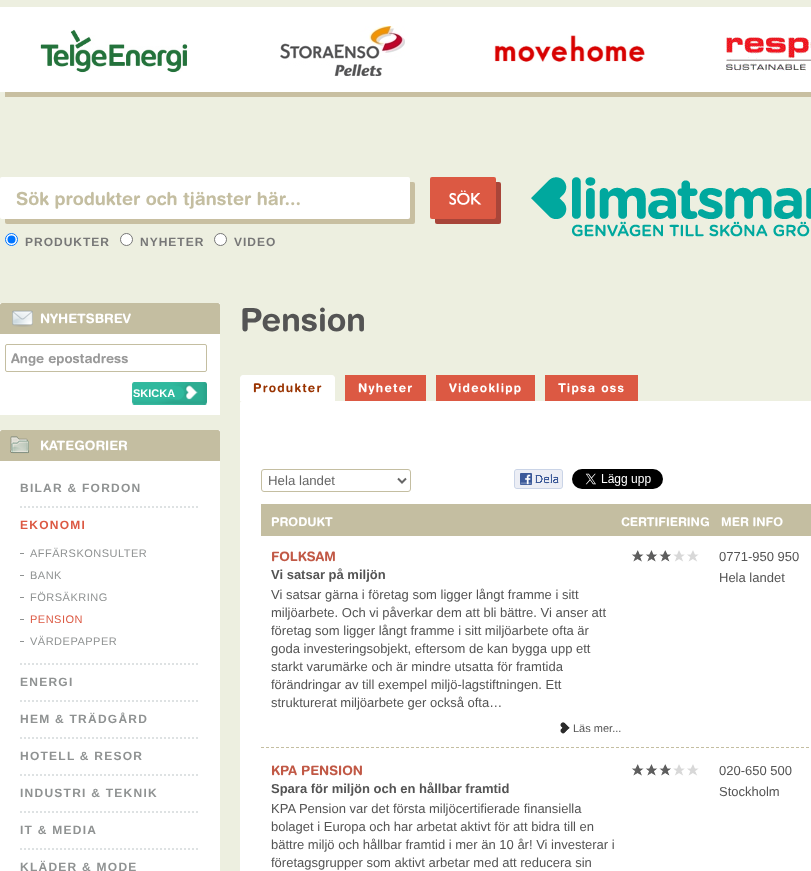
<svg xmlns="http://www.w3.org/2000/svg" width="811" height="871">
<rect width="100%" height="100%" fill="#edefe0"/>
<path d="M5 92v5h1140v-85h-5v80z" fill="#c8bfa1"/>
<rect y="7" width="811" height="85" fill="#fff"/>
<image x="40" y="29" width="148" height="44" href="media/1.png"/>
<image x="280" y="26" width="125" height="50" href="media/2.png"/>
<image x="494" y="35" width="151" height="27" href="media/3.png"/>
<image x="726" y="37" width="85" height="34" href="media/4.png"/>
<rect x="5" y="182" width="410" height="42" rx="2" fill="#c8bfa1" filter="blur(0.5px)"/>
<rect y="177" width="410" height="42" rx="2" fill="#fff"/>
<text x="16" y="205" style="font-family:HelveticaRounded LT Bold;font-size:18px;font-weight:bold;fill:#c4bea1">Sök produkter och tjänster här...</text>
<rect x="435" y="182" width="66" height="42" rx="2" fill="#a84539" filter="blur(0.5px)"/>
<image x="430" y="177" width="66" height="42" href="media/5.png"/>
<circle cx="11.5" cy="239.5" r="6" fill="#fff" stroke="#0075ff"/>
<circle cx="11.5" cy="239.5" r="4" fill="#0075ff"/>
<text x="25" y="246" style="font-family:Liberation Sans;font-size:12px;font-weight:bold;letter-spacing:1px;fill:#777">PRODUKTER</text>
<circle cx="126.5" cy="239.5" r="6" fill="#fff" stroke="#767676"/>
<text x="140" y="246" style="font-family:Liberation Sans;font-size:12px;font-weight:bold;letter-spacing:1px;fill:#777">NYHETER</text>
<circle cx="220.5" cy="239.5" r="6" fill="#fff" stroke="#767676"/>
<text x="234" y="246" style="font-family:Liberation Sans;font-size:12px;font-weight:bold;letter-spacing:1px;fill:#777">VIDEO</text>
<image x="531" y="177" width="280" height="60" href="media/6.png"/>
<rect y="303" width="220" height="112" fill="#fff"/>
<path d="M2 303h216c1 0 2 1 2 2v29h-220v-29c0-1 1-2 2-2z" fill="#c4bea1"/>
<image x="12" y="310" width="21" height="17" href="media/7.png"/>
<text x="40" y="323" style="font-family:HelveticaRounded LT Bold;font-size:13px;font-weight:bold;fill:#fff">NYHETSBREV</text>
<rect x="5.5" y="344.5" width="201" height="27" rx="1.5" fill="none" stroke="#c4bea1"/>
<text x="11" y="363" style="font-family:HelveticaRounded LT Bold;font-size:13.25px;font-weight:bold;fill:#999">Ange epostadress</text>
<rect x="132" y="382" width="75" height="23" rx="2" fill="#efefef"/>
<image x="132" y="382" width="75" height="23" href="media/8.png"/>
<text x="133" y="397" style="font-family:Liberation Sans;font-size:11px;font-weight:bold;fill:#fff">SKICKA</text>
<rect y="430" width="220" height="441" fill="#fff"/>
<path d="M2 430h216c1 0 2 1 2 2v29h-220v-29c0-1 1-2 2-2z" fill="#c4bea1"/>
<image x="10" y="436" width="19" height="18" href="media/9.png"/>
<text x="40" y="450" style="font-family:HelveticaRounded LT Bold;font-size:13px;font-weight:bold;fill:#fff">KATEGORIER</text>
<text x="20" y="492" style="font-family:Liberation Sans;font-size:12px;font-weight:bold;letter-spacing:1.25px;fill:#8f9292">BILAR &amp; FORDON</text>
<path d="M20 507h180" fill="none" stroke="#dee2e3" stroke-width="2" stroke-dasharray="2 2"/>
<text x="20" y="529" style="font-family:Liberation Sans;font-size:12px;font-weight:bold;letter-spacing:1.25px;fill:#dc5943">EKONOMI</text>
<rect x="20" y="553" width="4" height="1" fill="#8f9292"/>
<text x="30" y="557" style="font-family:Liberation Sans;font-size:11px;letter-spacing:0.5px;fill:#8f9292">AFFÄRSKONSULTER</text>
<rect x="20" y="575" width="4" height="1" fill="#8f9292"/>
<text x="30" y="579" style="font-family:Liberation Sans;font-size:11px;letter-spacing:0.5px;fill:#8f9292">BANK</text>
<rect x="20" y="597" width="4" height="1" fill="#8f9292"/>
<text x="30" y="601" style="font-family:Liberation Sans;font-size:11px;letter-spacing:0.5px;fill:#8f9292">FÖRSÄKRING</text>
<rect x="20" y="619" width="4" height="1" fill="#8f9292"/>
<text x="30" y="623" style="font-family:Liberation Sans;font-size:11px;letter-spacing:0.5px;fill:#dc5943">PENSION</text>
<rect x="20" y="641" width="4" height="1" fill="#8f9292"/>
<text x="30" y="645" style="font-family:Liberation Sans;font-size:11px;letter-spacing:0.5px;fill:#8f9292">VÄRDEPAPPER</text>
<path d="M20 664h180" fill="none" stroke="#dee2e3" stroke-width="2" stroke-dasharray="2 2"/>
<text x="20" y="686" style="font-family:Liberation Sans;font-size:12px;font-weight:bold;letter-spacing:1.25px;fill:#8f9292">ENERGI</text>
<path d="M20 701h180" fill="none" stroke="#dee2e3" stroke-width="2" stroke-dasharray="2 2"/>
<text x="20" y="723" style="font-family:Liberation Sans;font-size:12px;font-weight:bold;letter-spacing:1.25px;fill:#8f9292">HEM &amp; TRÄDGÅRD</text>
<path d="M20 738h180" fill="none" stroke="#dee2e3" stroke-width="2" stroke-dasharray="2 2"/>
<text x="20" y="760" style="font-family:Liberation Sans;font-size:12px;font-weight:bold;letter-spacing:1.25px;fill:#8f9292">HOTELL &amp; RESOR</text>
<path d="M20 775h180" fill="none" stroke="#dee2e3" stroke-width="2" stroke-dasharray="2 2"/>
<text x="20" y="797" style="font-family:Liberation Sans;font-size:12px;font-weight:bold;letter-spacing:1.25px;fill:#8f9292">INDUSTRI &amp; TEKNIK</text>
<path d="M20 812h180" fill="none" stroke="#dee2e3" stroke-width="2" stroke-dasharray="2 2"/>
<text x="20" y="834" style="font-family:Liberation Sans;font-size:12px;font-weight:bold;letter-spacing:1.25px;fill:#8f9292">IT &amp; MEDIA</text>
<path d="M20 849h180" fill="none" stroke="#dee2e3" stroke-width="2" stroke-dasharray="2 2"/>
<text x="20" y="871" style="font-family:Liberation Sans;font-size:12px;font-weight:bold;letter-spacing:1.25px;fill:#8f9292">KLÄDER &amp; MODE</text>
<text x="240" y="331" style="font-family:HelveticaRounded LT Bold;font-size:32px;font-weight:bold;fill:#545454">Pension</text>
<path d="M243 375h89c1.5 0 3 1.5 3 3v23h-95v-23c0-1.5 1.5-3 3-3z" fill="#fff"/>
<text x="253" y="392" style="font-family:HelveticaRounded LT Bold;font-size:12px;font-weight:bold;letter-spacing:1.25px;fill:#930">Produkter</text>
<rect x="345" y="375" width="81" height="26" fill="#dc5943"/>
<text x="358" y="392" style="font-family:HelveticaRounded LT Bold;font-size:12px;font-weight:bold;letter-spacing:1.25px;fill:#fff">Nyheter</text>
<rect x="436" y="375" width="99" height="26" fill="#dc5943"/>
<text x="449" y="392" style="font-family:HelveticaRounded LT Bold;font-size:12px;font-weight:bold;letter-spacing:1.25px;fill:#fff">Videoklipp</text>
<rect x="545" y="375" width="93" height="26" fill="#dc5943"/>
<text x="558" y="392" style="font-family:HelveticaRounded LT Bold;font-size:12px;font-weight:bold;letter-spacing:1.25px;fill:#fff">Tipsa oss</text>
<rect x="240" y="401" width="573" height="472" rx="2" fill="#fff"/>
<rect x="261.5" y="469.5" width="149" height="22" rx="2.5" fill="none" stroke="#c4bea1"/>
<path d="M398 478.5l4 4l4-4" fill="none" stroke="#666" stroke-width="2"/>
<text x="268" y="485" style="font-family:Liberation Sans;font-size:13.25px;fill:#666">Hela landet</text>
<image x="514" y="469" width="49" height="20" href="media/10.png"/>
<image x="572" y="469" width="91" height="20" href="media/11.png"/>
<rect x="261" y="504" width="550" height="32" fill="#c4bea1"/>
<text x="271" y="526" style="font-family:HelveticaRounded LT Bold;font-size:12px;font-weight:bold;fill:#fff">PRODUKT</text>
<text x="621" y="526" style="font-family:HelveticaRounded LT Bold;font-size:12px;font-weight:bold;fill:#fff">CERTIFIERING</text>
<text x="721" y="526" style="font-family:HelveticaRounded LT Bold;font-size:12px;font-weight:bold;fill:#fff">MER INFO</text>
<path d="M261 747.5h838" fill="none" stroke="#c4bea1" stroke-dasharray="3 2"/>
<text x="271" y="561" style="font-family:HelveticaRounded LT Bold;font-size:13px;font-weight:bold;fill:#c15946">FOLKSAM</text>
<text x="271" y="579" style="font-family:Liberation Sans;font-size:13px;font-weight:bold;fill:#545454">Vi satsar på miljön</text>
<text x="271" y="599" style="font-family:Liberation Sans;font-size:13px;fill:#545454">Vi satsar gärna i företag som ligger långt framme i sitt</text>
<text x="271" y="617" style="font-family:Liberation Sans;font-size:13px;fill:#545454">miljöarbete. Och vi påverkar dem att bli bättre. Vi anser att</text>
<text x="271" y="635" style="font-family:Liberation Sans;font-size:13px;fill:#545454">företag som ligger långt framme i sitt miljöarbete ofta är</text>
<text x="271" y="653" style="font-family:Liberation Sans;font-size:13px;fill:#545454">goda investeringsobjekt, eftersom de kan bygga upp ett</text>
<text x="271" y="671" style="font-family:Liberation Sans;font-size:13px;fill:#545454">starkt varumärke och är mindre utsatta för framtida</text>
<text x="271" y="689" style="font-family:Liberation Sans;font-size:13px;fill:#545454">förändringar av till exempel miljö-lagstiftningen. Ett</text>
<text x="271" y="707" style="font-family:Liberation Sans;font-size:13px;fill:#545454">strukturerat miljöarbete ger också ofta…</text>
<image x="560" y="722" width="10" height="12" href="media/12.png"/>
<text x="573" y="732" style="font-family:Liberation Sans;font-size:11px;fill:#545454">Läs mer...</text>
<image x="631" y="550" width="68" height="12" href="media/13.png"/>
<text x="719" y="561" style="font-family:Liberation Sans;font-size:13px;fill:#545454">0771-950 950</text>
<text x="719" y="582" style="font-family:Liberation Sans;font-size:13px;fill:#545454">Hela landet</text>
<text x="271" y="775" style="font-family:HelveticaRounded LT Bold;font-size:13px;font-weight:bold;fill:#c15946">KPA PENSION</text>
<text x="271" y="793" style="font-family:Liberation Sans;font-size:13px;font-weight:bold;fill:#545454">Spara för miljön och en hållbar framtid</text>
<text x="271" y="813" style="font-family:Liberation Sans;font-size:13px;fill:#545454">KPA Pension var det första miljöcertifierade finansiella</text>
<text x="271" y="831" style="font-family:Liberation Sans;font-size:13px;fill:#545454">bolaget i Europa och har arbetat aktivt för att bidra till en</text>
<text x="271" y="849" style="font-family:Liberation Sans;font-size:13px;fill:#545454">bättre miljö och hållbar framtid i mer än 10 år! Vi investerar i</text>
<text x="271" y="867" style="font-family:Liberation Sans;font-size:13px;fill:#545454">företagsgrupper som aktivt arbetar med att reducera sin</text>
<image x="631" y="764" width="68" height="12" href="media/13.png"/>
<text x="719" y="775" style="font-family:Liberation Sans;font-size:13px;fill:#545454">020-650 500</text>
<text x="719" y="796" style="font-family:Liberation Sans;font-size:13px;fill:#545454">Stockholm</text>
</svg>
